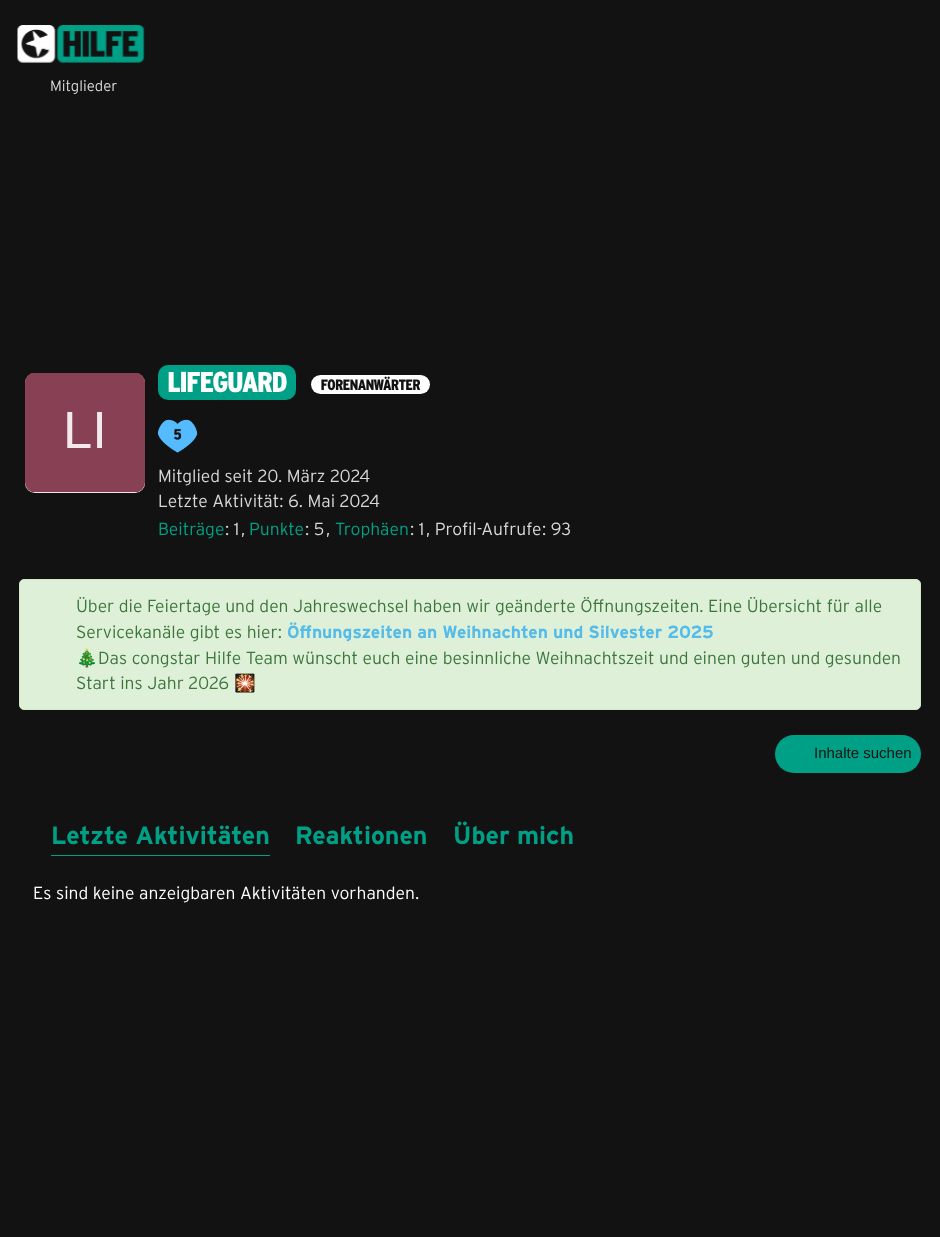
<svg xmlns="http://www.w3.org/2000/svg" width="940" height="1237">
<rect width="100%" height="100%" fill="#121212"/>
<image x="17" y="25" width="128" height="38" href="media/1.png"/>
<text x="50" y="91" style="font-family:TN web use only;font-size:15px;font-weight:300;fill:#d8d8d8">Mitglieder</text>
<rect x="25" y="373" width="120" height="120" rx="10" fill="#fff"/>
<image x="25" y="373" width="120" height="120" href="media/2.png"/>
<rect x="158" y="365" width="138" height="35" rx="10" fill="#00a086"/>
<text x="168" y="392" style="font-family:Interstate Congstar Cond;font-size:28.75px;font-weight:900;fill:#fff">LIFEGUARD</text>
<rect x="311" y="375" width="119" height="19" rx="9.5" fill="#fff"/>
<text x="321" y="390" style="font-family:Interstate Congstar Cond;font-size:15px;font-weight:900;fill:#121212">FORENANWÄRTER</text>
<image x="157" y="419" width="41" height="34" href="media/3.png"/>
<text x="158" y="482" style="font-family:TN web use only;font-size:17.5px;font-weight:300;fill:#d8d8d8">Mitglied seit 20. März 2024</text>
<text x="158" y="507" style="font-family:TN web use only;font-size:17.5px;font-weight:300;fill:#d8d8d8">Letzte Aktivität: 6. Mai 2024</text>
<text x="158" y="535" style="font-family:TN web use only;font-size:17.5px;font-weight:300;fill:#00a086">Beiträge</text>
<text x="225" y="535" style="font-family:TN web use only;font-size:17.5px;font-weight:300;fill:#d8d8d8">: 1</text>
<text x="241" y="535" style="font-family:TN web use only;font-size:17.5px;font-weight:300;fill:#d8d8d8">,</text>
<text x="249" y="535" style="font-family:TN web use only;font-size:17.5px;font-weight:300;fill:#00a086">Punkte</text>
<text x="305" y="535" style="font-family:TN web use only;font-size:17.5px;font-weight:300;fill:#d8d8d8">: 5</text>
<text x="326" y="535" style="font-family:TN web use only;font-size:17.5px;font-weight:300;fill:#d8d8d8">,</text>
<text x="335" y="535" style="font-family:TN web use only;font-size:17.5px;font-weight:300;fill:#00a086">Trophäen</text>
<text x="410" y="535" style="font-family:TN web use only;font-size:17.5px;font-weight:300;fill:#d8d8d8">: 1</text>
<text x="426" y="535" style="font-family:TN web use only;font-size:17.5px;font-weight:300;fill:#d8d8d8">, Profil-Aufrufe</text>
<text x="542" y="535" style="font-family:TN web use only;font-size:17.5px;font-weight:300;fill:#d8d8d8">: 93</text>
<rect x="19.5" y="579.5" width="901" height="130" rx="4.5" fill="#dff0d8" stroke="#d0e9c6"/>
<text x="76" y="612" style="font-family:TN web use only;font-size:17.5px;font-weight:300;fill:#3c763d">Über die Feiertage und den Jahreswechsel haben wir geänderte Öffnungszeiten. Eine Übersicht für alle</text>
<text x="76" y="638" style="font-family:TN web use only;font-size:17.5px;font-weight:300;fill:#3c763d">Servicekanäle gibt es hier:</text>
<text x="287" y="638" style="font-family:TN web use only;font-size:17.5px;font-weight:bold;fill:#55bbe9">Öffnungszeiten an Weihnachten und Silvester 2025</text>
<text x="76" y="664" style="font-family:Noto Color Emoji;font-size:17.5px;fill:#3c763d">🎄</text>
<text x="98" y="664" style="font-family:TN web use only;font-size:17.5px;font-weight:300;fill:#3c763d">Das congstar Hilfe Team wünscht euch eine besinnliche Weihnachtszeit und einen guten und gesunden</text>
<text x="76" y="689" style="font-family:TN web use only;font-size:17.5px;font-weight:300;fill:#3c763d">Start ins Jahr 2026</text>
<text x="234" y="689" style="font-family:Noto Color Emoji;font-size:17.5px;fill:#3c763d">🎇</text>
<rect x="775" y="735" width="146" height="38" rx="19" fill="#00a086"/>
<text x="814" y="758" style="font-family:Liberation Sans;font-size:15px;fill:#121212">Inhalte suchen</text>
<text x="51" y="844" style="font-family:TN web use only;font-size:25px;font-weight:bold;fill:#00a086">Letzte Aktivitäten</text>
<rect x="51" y="855" width="219" height="1" fill="#00a086"/>
<text x="295" y="844" style="font-family:TN web use only;font-size:25px;font-weight:bold;fill:#00a086">Reaktionen</text>
<text x="453" y="844" style="font-family:TN web use only;font-size:25px;font-weight:bold;fill:#00a086">Über mich</text>
<text x="33" y="899" style="font-family:TN web use only;font-size:17.5px;font-weight:300;fill:#fff">Es sind keine anzeigbaren Aktivitäten vorhanden.</text>
</svg>
